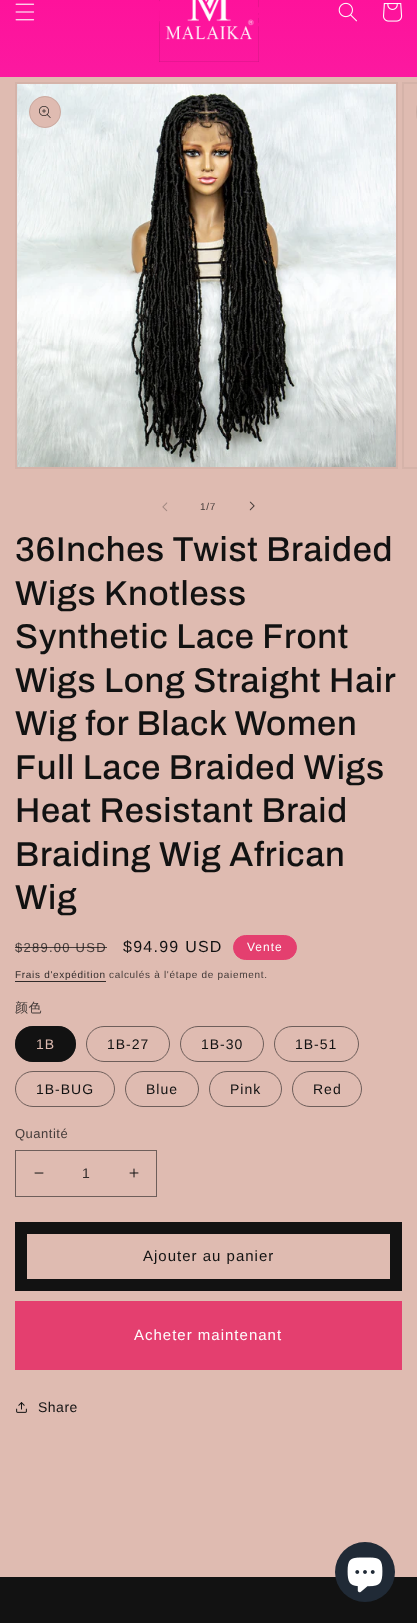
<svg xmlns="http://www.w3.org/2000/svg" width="417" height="1623">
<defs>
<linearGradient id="g1" gradientUnits="userSpaceOnUse" x1="208" y1="0" x2="209" y2="1623"><stop offset="0" stop-color="#fe129b"/><stop offset="1" stop-color="#cea8ff"/></linearGradient>
</defs>
<rect width="100%" height="100%" fill="#dfbbb1"/>
<rect width="417" height="77" fill="url(#g1)"/>
<image x="15" y="3" width="20" height="18" href="media/1.png"/>
<image x="159" y="0" width="100" height="62" href="media/2.png"/>
<image x="338" y="2" width="19" height="20" href="media/3.png"/>
<image x="383" y="3" width="20" height="19" href="media/4.png"/>
<rect x="16" y="83" width="381" height="385" fill="none" stroke="#d5b3a9" stroke-width="2"/>
<image x="17" y="84" width="379" height="383" href="media/5.png"/>
<circle cx="45" cy="112" r="16" fill="#dfbbb1"/>
<circle cx="45" cy="112" r="15.5" fill="none" stroke="#1212121a"/>
<image x="39" y="106" width="12" height="12" href="media/6.png"/>
<rect x="403" y="83" width="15" height="385" fill="none" stroke="#d5b3a9" stroke-width="2"/>
<rect x="416.5" y="96.5" width="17" height="31" rx="15.5" fill="none" stroke="#cbaaa1"/>
<image x="162" y="502" width="6" height="10" href="media/7.png"/>
<text x="200" y="510" style="font-family:Arimo;font-size:10px;letter-spacing:0.7px;fill:#453c3a">1/7</text>
<image x="249" y="501" width="6" height="10" href="media/8.png"/>
<text x="15" y="561" style="font-family:Archivo;font-size:34.5px;font-weight:500;letter-spacing:0.7px;fill:#121212">36Inches Twist Braided</text>
<text x="15" y="605" style="font-family:Archivo;font-size:34.5px;font-weight:500;letter-spacing:0.7px;fill:#121212">Wigs Knotless</text>
<text x="15" y="648" style="font-family:Archivo;font-size:34.5px;font-weight:500;letter-spacing:0.7px;fill:#121212">Synthetic Lace Front</text>
<text x="15" y="692" style="font-family:Archivo;font-size:34.5px;font-weight:500;letter-spacing:0.7px;fill:#121212">Wigs Long Straight Hair</text>
<text x="15" y="735" style="font-family:Archivo;font-size:34.5px;font-weight:500;letter-spacing:0.7px;fill:#121212">Wig for Black Women</text>
<text x="15" y="779" style="font-family:Archivo;font-size:34.5px;font-weight:500;letter-spacing:0.7px;fill:#121212">Full Lace Braided Wigs</text>
<text x="15" y="822" style="font-family:Archivo;font-size:34.5px;font-weight:500;letter-spacing:0.7px;fill:#121212">Heat Resistant Braid</text>
<text x="15" y="866" style="font-family:Archivo;font-size:34.5px;font-weight:500;letter-spacing:0.7px;fill:#121212">Braiding Wig African</text>
<text x="15" y="909" style="font-family:Archivo;font-size:34.5px;font-weight:500;letter-spacing:0.7px;fill:#121212">Wig</text>
<text x="15" y="952" style="font-family:Arimo;font-size:13px;letter-spacing:1.25px;fill:#453c3a">$289.00 USD</text>
<rect x="15" y="947" width="92" height="1" fill="#121212bf"/>
<text x="123" y="952" style="font-family:Arimo;font-size:16px;letter-spacing:1.25px;fill:#121212">$94.99 USD</text>
<rect x="233.5" y="935.5" width="63" height="24" rx="12" fill="#e43f6f" stroke="#e43f6f"/>
<text x="247" y="951" style="font-family:Arimo;font-size:12px;letter-spacing:1px;fill:#fdfdfd">Vente</text>
<text x="15" y="978" style="font-family:Arimo;font-size:10px;letter-spacing:0.7px;fill:#312b2a">Frais d'expédition</text>
<rect x="15" y="981" width="91" height="1" fill="#312b2a"/>
<text x="109" y="978" style="font-family:Arimo;font-size:10px;letter-spacing:0.7px;fill:#453c3a">calculés à l'étape de paiement.</text>
<text x="15" y="1012" style="font-family:WenQuanYi Zen Hei;font-size:13px;font-weight:500;letter-spacing:0.5px;fill:#453c3a">颜色</text>
<rect x="15" y="1026" width="61" height="36" rx="18" fill="#121212"/>
<rect x="15.5" y="1026.5" width="60" height="35" rx="17.5" fill="none" stroke="#1212128c"/>
<text x="36" y="1049" style="font-family:Arimo;font-size:14px;letter-spacing:1px;fill:#dfbbb1">1B</text>
<rect x="86.5" y="1026.5" width="83" height="35" rx="17.5" fill="none" stroke="#6e5e5a"/>
<text x="107" y="1049" style="font-family:Arimo;font-size:14px;letter-spacing:1px;fill:#121212">1B-27</text>
<rect x="180.5" y="1026.5" width="83" height="35" rx="17.5" fill="none" stroke="#6e5e5a"/>
<text x="201" y="1049" style="font-family:Arimo;font-size:14px;letter-spacing:1px;fill:#121212">1B-30</text>
<rect x="274.5" y="1026.5" width="84" height="35" rx="17.5" fill="none" stroke="#6e5e5a"/>
<text x="295" y="1049" style="font-family:Arimo;font-size:14px;letter-spacing:1px;fill:#121212">1B-51</text>
<rect x="15.5" y="1071.5" width="99" height="35" rx="17.5" fill="none" stroke="#6e5e5a"/>
<text x="36" y="1094" style="font-family:Arimo;font-size:14px;letter-spacing:1px;fill:#121212">1B-BUG</text>
<rect x="125.5" y="1071.5" width="73" height="35" rx="17.5" fill="none" stroke="#6e5e5a"/>
<text x="146" y="1094" style="font-family:Arimo;font-size:14px;letter-spacing:1px;fill:#121212">Blue</text>
<rect x="209.5" y="1071.5" width="72" height="35" rx="17.5" fill="none" stroke="#6e5e5a"/>
<text x="230" y="1094" style="font-family:Arimo;font-size:14px;letter-spacing:1px;fill:#121212">Pink</text>
<rect x="292.5" y="1071.5" width="69" height="35" rx="17.5" fill="none" stroke="#6e5e5a"/>
<text x="313" y="1094" style="font-family:Arimo;font-size:14px;letter-spacing:1px;fill:#121212">Red</text>
<text x="15" y="1138" style="font-family:Arimo;font-size:13px;letter-spacing:0.5px;fill:#453c3a">Quantité</text>
<image x="34" y="1172" width="10" height="2" href="media/9.png"/>
<image x="129" y="1168" width="10" height="10" href="media/10.png"/>
<rect x="15.5" y="1150.5" width="141" height="46" fill="none" stroke="#6e5e5a"/>
<text x="82" y="1178" style="font-family:Liberation Sans;font-size:14px;fill:#312b2a">1</text>
<rect x="21" y="1228" width="375" height="57" fill="none" stroke="#121212" stroke-width="12"/>
<text x="143" y="1261" style="font-family:Arimo;font-size:15px;letter-spacing:1px;fill:#121212">Ajouter au panier</text>
<rect x="15" y="1301" width="387" height="69" fill="#e43f6f"/>
<text x="134" y="1340" style="font-family:Arimo;font-size:15px;letter-spacing:1px;fill:#fdfdfd">Acheter maintenant</text>
<image x="16" y="1402" width="11" height="11" href="media/11.png"/>
<text x="38" y="1412" style="font-family:Arimo;font-size:14px;letter-spacing:0.5px;fill:#121212">Share</text>
<rect y="1577" width="417" height="46" fill="#121212"/>
<circle cx="365" cy="1572" r="30" fill="#202a36"/>
<image x="347" y="1557" width="36" height="36" href="media/12.png"/>
</svg>
